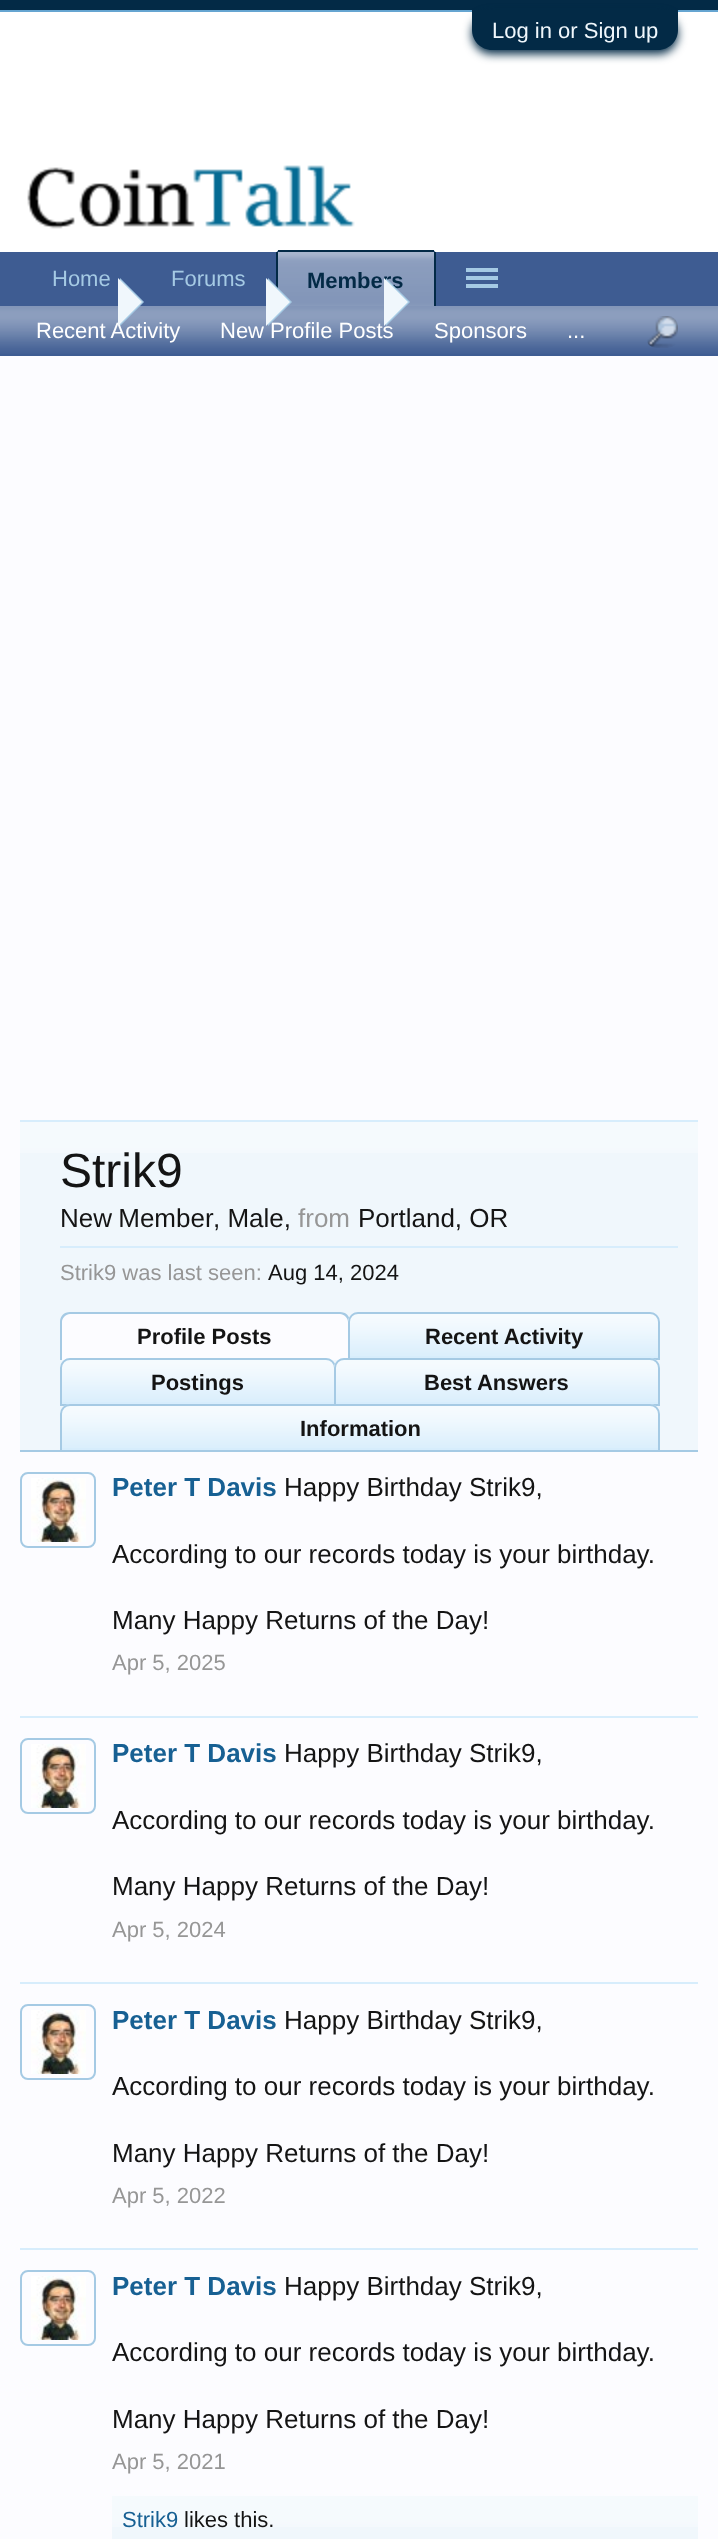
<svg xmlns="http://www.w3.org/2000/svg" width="718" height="2539">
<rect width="100%" height="100%" fill="#fcfcff"/>
<rect width="718" height="10" fill="#032a46"/>
<rect y="10" width="718" height="2" fill="#65a5d1"/>
<rect y="12" width="718" height="240" fill="#fff"/>
<rect x="472" y="14" width="206" height="40" rx="20" fill="#032a46" filter="blur(5px)"/>
<path d="M472 10h206v20c0 11-9 20-20 20h-166c-11 0-20-9-20-20z" fill="#032a46"/>
<text x="492" y="38" style="font-family:Liberation Sans;font-size:22px;fill:#f0f7fc">Log in or Sign up</text>
<image x="27" y="165" width="328" height="64" href="media/1.png"/>
<rect y="252" width="718" height="104" fill="#3e5c92"/>
<text x="52" y="286" style="font-family:Liberation Sans;font-size:22px;fill:#a5cae4">Home</text>
<text x="171" y="286" style="font-family:Liberation Sans;font-size:22px;fill:#a5cae4">Forums</text>
<rect x="466" y="268" width="32" height="4" fill="#a5cae4"/>
<rect x="466" y="276" width="32" height="4" fill="#a5cae4"/>
<rect x="466" y="284" width="32" height="4" fill="#a5cae4"/>
<path d="M280 250h152c2 0 4 2 4 4v52h-160v-52c0-2 2-4 4-4z" fill="#3e5c92"/>
<image x="278" y="252" width="156" height="54" href="media/2.png"/>
<rect x="278" y="250" width="156" height="2" fill="#032a46"/>
<rect x="434" y="252" width="2" height="54" fill="#032a46"/>
<rect x="276" y="252" width="2" height="36" fill="#032a46"/>
<text x="307" y="288" style="font-family:Liberation Sans;font-size:22px;font-weight:bold;fill:#032a46">Members</text>
<image x="0" y="306" width="718" height="48" href="media/3.png"/>
<text x="36" y="338" style="font-family:Liberation Sans;font-size:22px;fill:#fff">Recent Activity</text>
<text x="220" y="338" style="font-family:Liberation Sans;font-size:22px;fill:#fff">New Profile Posts</text>
<text x="434" y="338" style="font-family:Liberation Sans;font-size:22px;fill:#fff">Sponsors</text>
<text x="567" y="338" style="font-family:Liberation Sans;font-size:22px;fill:#fff">...</text>
<image x="647" y="316" width="31" height="32" href="media/4.png"/>
<path d="M120 326v-48l24 24z" fill="#a5cae4"/>
<path d="M118 326v-48l24 24z" fill="#f0f7fc"/>
<path d="M268 326v-48l24 24z" fill="#a5cae4"/>
<path d="M266 326v-48l24 24z" fill="#f0f7fc"/>
<path d="M386 326v-48l24 24z" fill="#a5cae4"/>
<path d="M384 326v-48l24 24z" fill="#f0f7fc"/>
<rect x="20" y="1120" width="678" height="2" fill="#d7edfc"/>
<rect x="20" y="1122" width="678" height="328" fill="#f0f7fc"/>
<image x="20" y="1122" width="678" height="31" href="media/5.png"/>
<text x="60" y="1187" style="font-family:Liberation Sans;font-size:48px;fill:#141414">Strik9</text>
<text x="60" y="1227" word-spacing="-1" style="font-family:Liberation Sans;font-size:26px;fill:#141414">New Member</text>
<text x="213" y="1227" style="font-family:Liberation Sans;font-size:26px;fill:#141414">, Male,</text>
<text x="298" y="1227" style="font-family:Liberation Sans;font-size:26px;fill:#969696">from</text>
<text x="358" y="1227" style="font-family:Liberation Sans;font-size:26px;fill:#141414">Portland, OR</text>
<rect x="60" y="1246" width="618" height="2" fill="#d7edfc"/>
<text x="60" y="1280" style="font-family:Liberation Sans;font-size:22px;fill:#969696">Strik9 was last seen:</text>
<text x="268" y="1280" style="font-family:Liberation Sans;font-size:22px;fill:#141414">Aug 14, 2024</text>
<rect x="20" y="1450" width="678" height="2" fill="#a5cae4"/>
<path d="M70 1312h270c5.5 0 10 4.5 10 10v38h-290v-38c0-5.5 4.5-10 10-10z" fill="#fcfcff"/>
<path d="M70 1312h270c6 0 10 4 10 10v38h-290v-38c0-6 4-10 10-10zm0 2h270c4 0 8 4 8 8v38h-286v-38c0-4 4-8 8-8z" fill="#a5cae4" fill-rule="evenodd"/>
<text x="137" y="1344" style="font-family:Liberation Sans;font-size:22px;font-weight:bold;fill:#141414">Profile Posts</text>
<path d="M358 1312h292c5.5 0 10 4.5 10 10v38h-312v-38c0-5.5 4.5-10 10-10z" fill="#d7edfc"/>
<image x="348" y="1314" width="312" height="42" href="media/6.png"/>
<path d="M358 1313h292c5 0 9 4 9 9v37h-310v-37c0-5 4-9 9-9z" fill="none" stroke="#a5cae4" stroke-width="2"/>
<text x="425" y="1344" style="font-family:Liberation Sans;font-size:22px;font-weight:bold;fill:#141414">Recent Activity</text>
<path d="M70 1358h256c5.5 0 10 4.5 10 10v38h-276v-38c0-5.5 4.5-10 10-10z" fill="#d7edfc"/>
<image x="60" y="1360" width="275" height="42" href="media/7.png"/>
<path d="M70 1359h256c5 0 9 4 9 9v37h-274v-37c0-5 4-9 9-9z" fill="none" stroke="#a5cae4" stroke-width="2"/>
<text x="151" y="1390" style="font-family:Liberation Sans;font-size:22px;font-weight:bold;fill:#141414">Postings</text>
<path d="M344 1358h306c5.5 0 10 4.5 10 10v38h-326v-38c0-5.5 4.5-10 10-10z" fill="#d7edfc"/>
<image x="334" y="1360" width="326" height="42" href="media/8.png"/>
<path d="M344 1359h306c5 0 9 4 9 9v37h-324v-37c0-5 4-9 9-9z" fill="none" stroke="#a5cae4" stroke-width="2"/>
<text x="424" y="1390" style="font-family:Liberation Sans;font-size:22px;font-weight:bold;fill:#141414">Best Answers</text>
<path d="M70 1404h580c5.5 0 10 4.5 10 10v38h-600v-38c0-5.5 4.5-10 10-10z" fill="#d7edfc"/>
<image x="60" y="1406" width="600" height="42" href="media/9.png"/>
<path d="M70 1405h580c5 0 9 4 9 9v37h-598v-37c0-5 4-9 9-9z" fill="none" stroke="#a5cae4" stroke-width="2"/>
<text x="300" y="1436" style="font-family:Liberation Sans;font-size:22px;font-weight:bold;fill:#141414">Information</text>
<rect x="20" y="1716" width="678" height="2" fill="#d7edfc"/>
<rect x="21" y="1473" width="74" height="74" rx="7" fill="none" stroke="#a5cae4" stroke-width="2"/>
<image x="31" y="1478" width="55" height="64" href="media/10.png"/>
<text x="112" y="1496" style="font-family:Liberation Sans;font-size:26px;font-weight:bold;fill:#176093">Peter T Davis</text>
<text x="284" y="1496" style="font-family:Liberation Sans;font-size:26px;fill:#141414">Happy Birthday Strik9,</text>
<text x="112" y="1563" style="font-family:Liberation Sans;font-size:26px;fill:#141414">According to our records today is your birthday.</text>
<text x="112" y="1629" style="font-family:Liberation Sans;font-size:26px;fill:#141414">Many Happy Returns of the Day!</text>
<text x="112" y="1670" style="font-family:Liberation Sans;font-size:22px;fill:#969696">Apr 5, 2025</text>
<rect x="20" y="1982" width="678" height="2" fill="#d7edfc"/>
<rect x="21" y="1739" width="74" height="74" rx="7" fill="none" stroke="#a5cae4" stroke-width="2"/>
<image x="31" y="1744" width="55" height="64" href="media/10.png"/>
<text x="112" y="1762" style="font-family:Liberation Sans;font-size:26px;font-weight:bold;fill:#176093">Peter T Davis</text>
<text x="284" y="1762" style="font-family:Liberation Sans;font-size:26px;fill:#141414">Happy Birthday Strik9,</text>
<text x="112" y="1829" style="font-family:Liberation Sans;font-size:26px;fill:#141414">According to our records today is your birthday.</text>
<text x="112" y="1895" style="font-family:Liberation Sans;font-size:26px;fill:#141414">Many Happy Returns of the Day!</text>
<text x="112" y="1937" style="font-family:Liberation Sans;font-size:22px;fill:#969696">Apr 5, 2024</text>
<rect x="20" y="2248" width="678" height="2" fill="#d7edfc"/>
<rect x="21" y="2005" width="74" height="74" rx="7" fill="none" stroke="#a5cae4" stroke-width="2"/>
<image x="31" y="2010" width="55" height="64" href="media/10.png"/>
<text x="112" y="2029" style="font-family:Liberation Sans;font-size:26px;font-weight:bold;fill:#176093">Peter T Davis</text>
<text x="284" y="2029" style="font-family:Liberation Sans;font-size:26px;fill:#141414">Happy Birthday Strik9,</text>
<text x="112" y="2095" style="font-family:Liberation Sans;font-size:26px;fill:#141414">According to our records today is your birthday.</text>
<text x="112" y="2162" style="font-family:Liberation Sans;font-size:26px;fill:#141414">Many Happy Returns of the Day!</text>
<text x="112" y="2203" style="font-family:Liberation Sans;font-size:22px;fill:#969696">Apr 5, 2022</text>
<rect x="21" y="2271" width="74" height="74" rx="7" fill="none" stroke="#a5cae4" stroke-width="2"/>
<image x="31" y="2276" width="55" height="64" href="media/10.png"/>
<text x="112" y="2295" style="font-family:Liberation Sans;font-size:26px;font-weight:bold;fill:#176093">Peter T Davis</text>
<text x="284" y="2295" style="font-family:Liberation Sans;font-size:26px;fill:#141414">Happy Birthday Strik9,</text>
<text x="112" y="2361" style="font-family:Liberation Sans;font-size:26px;fill:#141414">According to our records today is your birthday.</text>
<text x="112" y="2428" style="font-family:Liberation Sans;font-size:26px;fill:#141414">Many Happy Returns of the Day!</text>
<text x="112" y="2469" style="font-family:Liberation Sans;font-size:22px;fill:#969696">Apr 5, 2021</text>
<rect x="112" y="2496" width="586" height="43" fill="#f0f7fc"/>
<image x="112" y="2496" width="586" height="31" href="media/11.png"/>
<text x="122" y="2527" style="font-family:Liberation Sans;font-size:22px;fill:#176093">Strik9</text>
<text x="184" y="2527" style="font-family:Liberation Sans;font-size:22px;fill:#141414">likes this.</text>
</svg>
